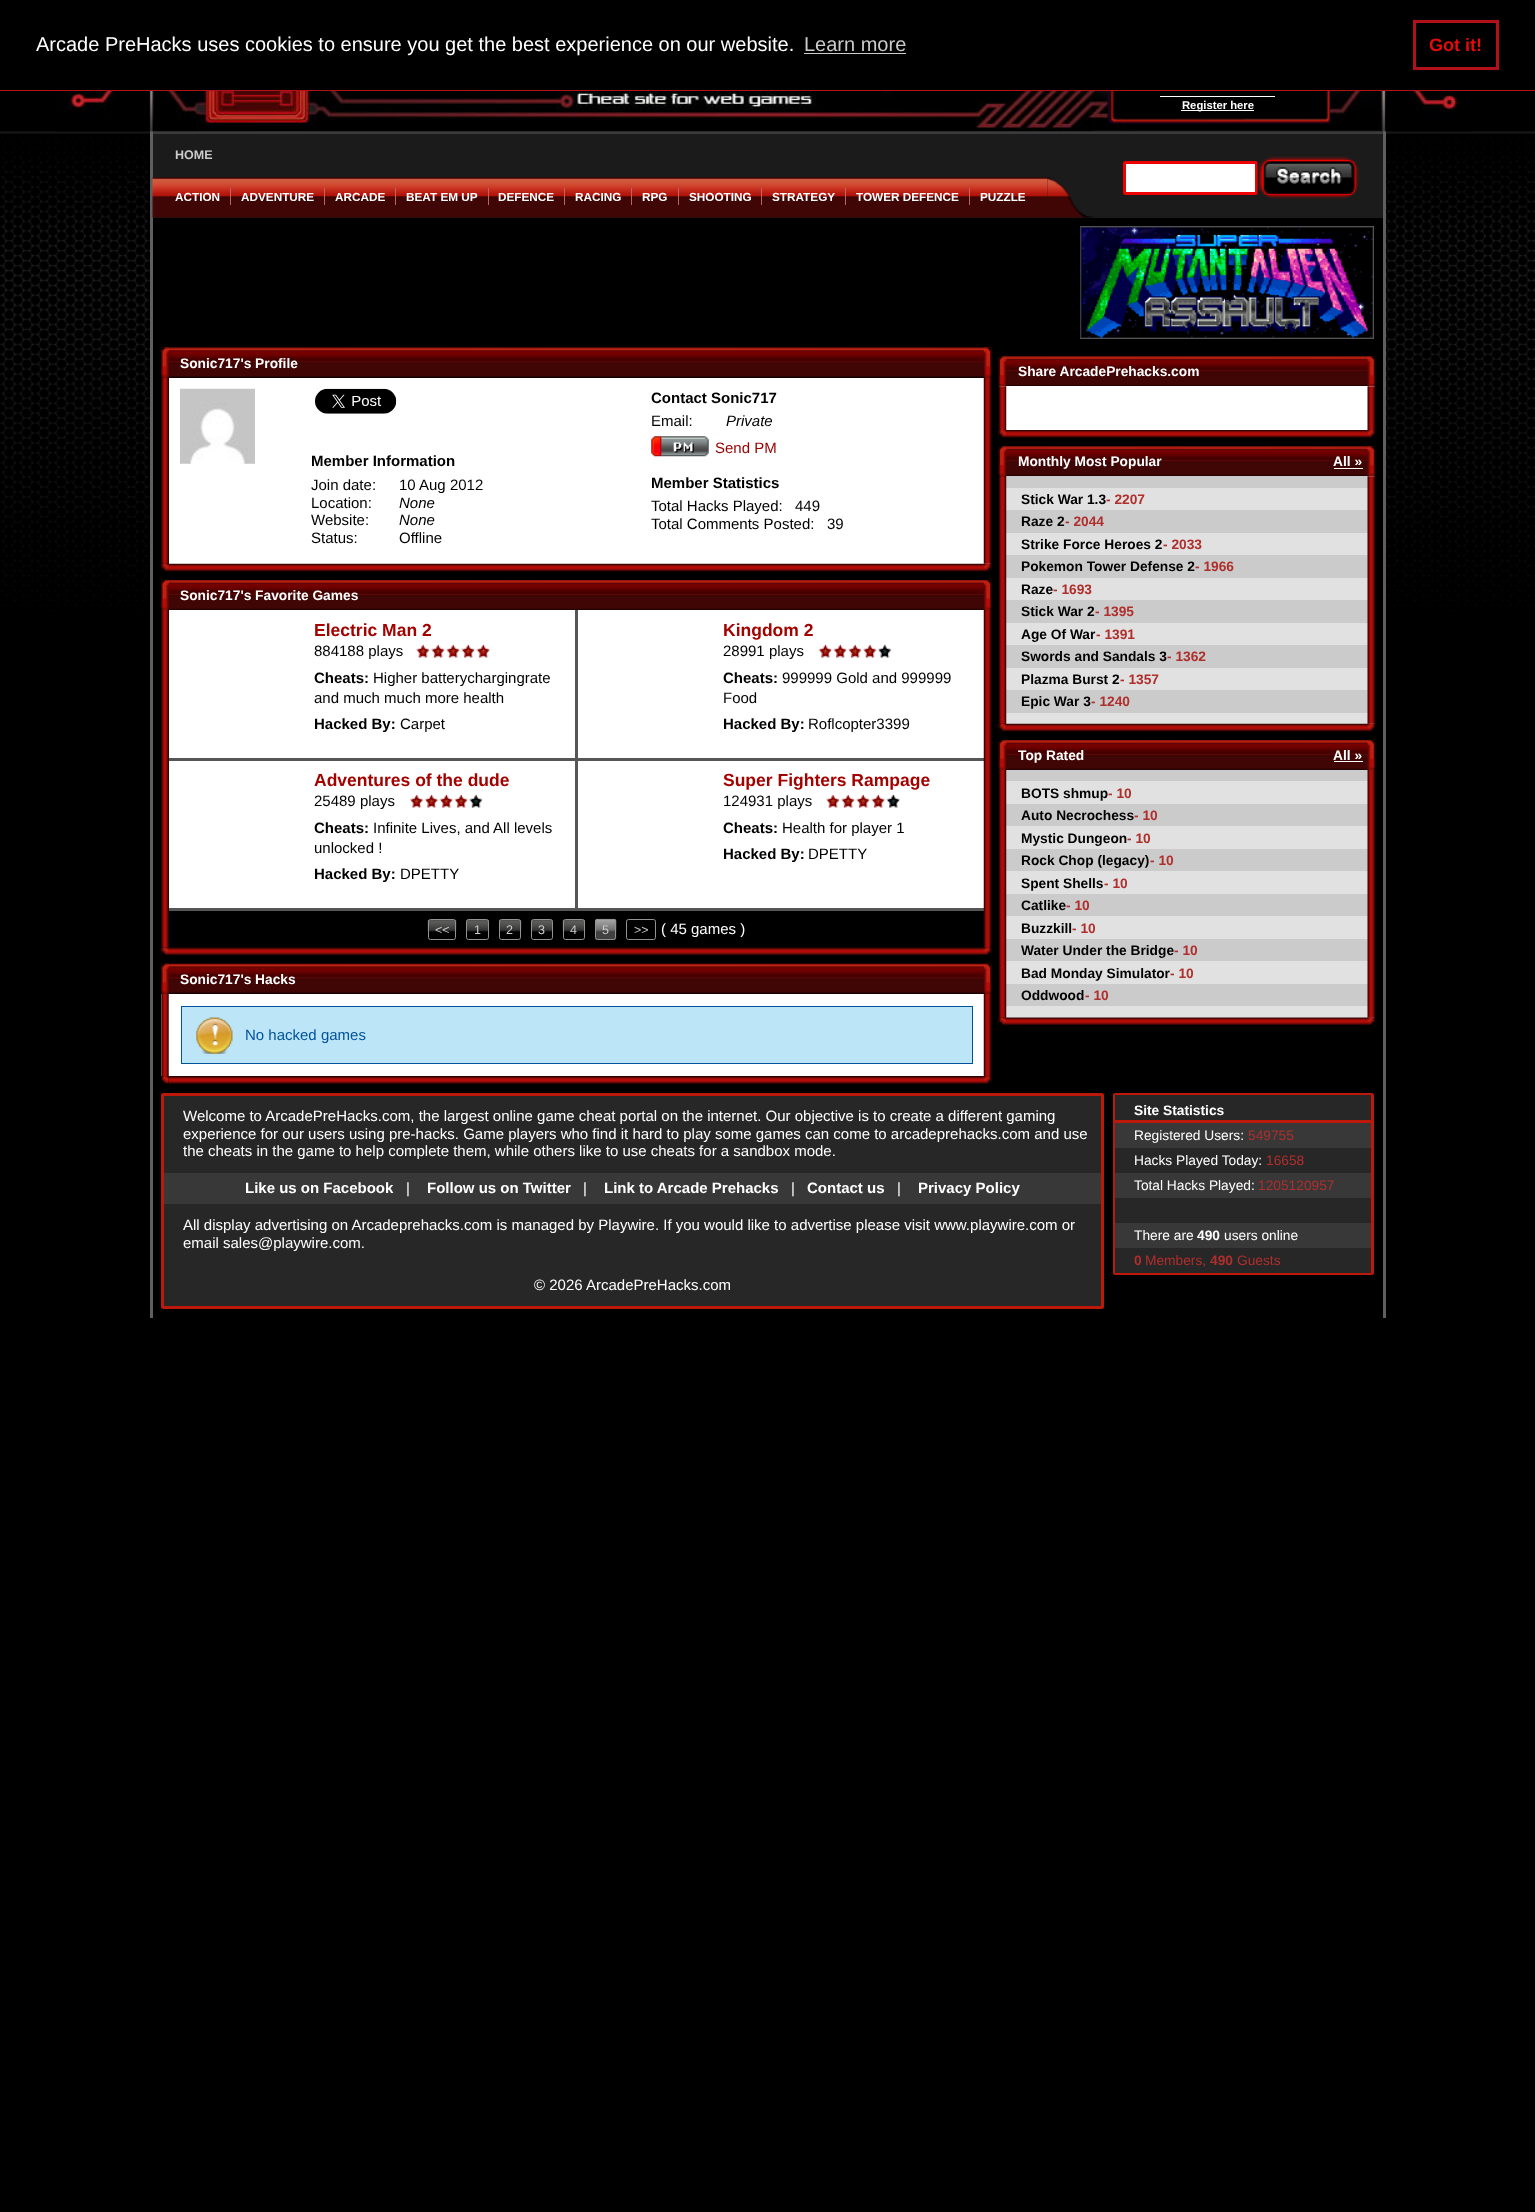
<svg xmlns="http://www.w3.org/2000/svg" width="1535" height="2212">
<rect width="100%" height="100%" fill="#000"/>
<rect y="90" width="1535" height="1" fill="#b2111a"/>
<text x="36" y="51" style="font-family:Liberation Sans;font-size:20px;fill:#fff">Arcade PreHacks uses cookies to ensure you get the best experience on our website.</text>
<text x="804" y="51" style="font-family:Liberation Sans;font-size:20px;fill:#ccc">Learn more</text>
<rect x="804" y="53" width="102" height="1" fill="#ccc"/>
<rect x="1414.5" y="21.5" width="83" height="47" fill="none" stroke="#b2111a" stroke-width="3"/>
<text x="1429" y="51" style="font-family:Liberation Sans;font-size:18px;font-weight:bold;fill:#e60b0b">Got it!</text>
<image x="0" y="131" width="1535" height="480" href="media/1.png"/>
<rect x="153" y="218" width="1230" height="393" fill="#000"/>
<rect x="1383" y="131" width="3" height="1187" fill="#5f5f5f"/>
<rect x="150" y="131" width="3" height="1187" fill="#5f5f5f"/>
<rect x="153" y="131" width="1230" height="3" fill="#3c3b3b"/>
<image x="56" y="91" width="1416" height="41" href="media/2.png"/>
<image x="1107" y="91" width="223" height="33" href="media/3.png"/>
<rect x="1160" y="96" width="115" height="1" fill="#fff"/>
<rect x="1181" y="110" width="73" height="1" fill="#fff"/>
<text x="1182" y="109" style="font-family:Liberation Sans;font-size:11.25px;font-weight:bold;fill:#fff">Register here</text>
<rect x="153" y="134" width="1230" height="84" fill="#1b1b1b"/>
<text x="175" y="159" style="font-family:Liberation Sans;font-size:12.5px;font-weight:bold;fill:#ccc">HOME</text>
<image x="152" y="177" width="896" height="41" href="media/4.png"/>
<text x="175" y="201" style="font-family:Liberation Sans;font-size:11.75px;font-weight:bold;fill:#fff">ACTION</text>
<rect x="230" y="188" width="1" height="17" fill="#bb6662"/>
<text x="241" y="201" style="font-family:Liberation Sans;font-size:11.75px;font-weight:bold;fill:#fff">ADVENTURE</text>
<rect x="324" y="188" width="1" height="17" fill="#bb6662"/>
<text x="335" y="201" style="font-family:Liberation Sans;font-size:11.75px;font-weight:bold;fill:#fff">ARCADE</text>
<rect x="395" y="188" width="1" height="17" fill="#bb6662"/>
<text x="406" y="201" style="font-family:Liberation Sans;font-size:11.75px;font-weight:bold;fill:#fff">BEAT EM UP</text>
<rect x="488" y="188" width="1" height="17" fill="#bb6662"/>
<text x="498" y="201" style="font-family:Liberation Sans;font-size:11.75px;font-weight:bold;fill:#fff">DEFENCE</text>
<rect x="564" y="188" width="1" height="17" fill="#bb6662"/>
<text x="575" y="201" style="font-family:Liberation Sans;font-size:11.75px;font-weight:bold;fill:#fff">RACING</text>
<rect x="631" y="188" width="1" height="17" fill="#bb6662"/>
<text x="642" y="201" style="font-family:Liberation Sans;font-size:11.75px;font-weight:bold;fill:#fff">RPG</text>
<rect x="678" y="188" width="1" height="17" fill="#bb6662"/>
<text x="689" y="201" style="font-family:Liberation Sans;font-size:11.75px;font-weight:bold;fill:#fff">SHOOTING</text>
<rect x="761" y="188" width="1" height="17" fill="#bb6662"/>
<text x="772" y="201" style="font-family:Liberation Sans;font-size:11.75px;font-weight:bold;fill:#fff">STRATEGY</text>
<rect x="845" y="188" width="1" height="17" fill="#bb6662"/>
<text x="856" y="201" style="font-family:Liberation Sans;font-size:11.75px;font-weight:bold;fill:#fff">TOWER DEFENCE</text>
<rect x="969" y="188" width="1" height="17" fill="#bb6662"/>
<text x="980" y="201" style="font-family:Liberation Sans;font-size:11.75px;font-weight:bold;fill:#fff">PUZZLE</text>
<image x="1047" y="177" width="47" height="41" href="media/5.png"/>
<rect x="1124.5" y="162.5" width="132" height="31" rx="1" fill="#fff" stroke="#f00101" stroke-width="3"/>
<image x="1257" y="156" width="102" height="43" href="media/6.png"/>
<rect x="1080" y="226" width="294" height="113" fill="#9b9b9b"/>
<image x="1080" y="226" width="294" height="113" href="media/7.png"/>
<image x="161" y="347" width="831" height="31" href="media/9.png"/>
<image x="161" y="347" width="8" height="31" href="media/8.png"/>
<text x="180" y="368" style="font-family:Liberation Sans;font-size:13.75px;font-weight:bold;fill:#fff">Sonic717's Profile</text>
<image x="983" y="347" width="9" height="31" href="media/10.png"/>
<rect x="169" y="378" width="822" height="186" fill="#fff"/>
<image x="161" y="563" width="831" height="9" href="media/16.png"/>
<rect x="161" y="563" width="8" height="1" fill="#000"/>
<image x="161" y="377" width="8" height="187" href="media/11.png"/>
<image x="180" y="388" width="75" height="76" href="media/12.png"/>
<image x="315" y="388" width="82" height="26" href="media/13.png"/>
<text x="311" y="466" style="font-family:Liberation Sans;font-size:15px;font-weight:bold;fill:#000">Member Information</text>
<text x="311" y="490" style="font-family:Liberation Sans;font-size:15px;fill:#000">Join date:</text>
<text x="399" y="490" style="font-family:Liberation Sans;font-size:15px;fill:#000">10 Aug 2012</text>
<text x="311" y="508" style="font-family:Liberation Sans;font-size:15px;fill:#000">Location:</text>
<text x="399" y="508" style="font-family:Liberation Sans;font-size:15px;font-style:italic;fill:#000">None</text>
<text x="311" y="525" style="font-family:Liberation Sans;font-size:15px;fill:#000">Website:</text>
<text x="399" y="525" style="font-family:Liberation Sans;font-size:15px;font-style:italic;fill:#000">None</text>
<text x="311" y="543" style="font-family:Liberation Sans;font-size:15px;fill:#000">Status:</text>
<text x="399" y="543" style="font-family:Liberation Sans;font-size:15px;fill:#000">Offline</text>
<text x="651" y="403" style="font-family:Liberation Sans;font-size:15px;font-weight:bold;fill:#000">Contact Sonic717</text>
<text x="651" y="426" style="font-family:Liberation Sans;font-size:15px;fill:#000">Email:</text>
<text x="726" y="426" style="font-family:Liberation Sans;font-size:15px;font-style:italic;fill:#000">Private</text>
<image x="651" y="436" width="58" height="21" href="media/14.png"/>
<text x="715" y="453" style="font-family:Liberation Sans;font-size:15px;fill:#900">Send PM</text>
<text x="651" y="488" style="font-family:Liberation Sans;font-size:15px;font-weight:bold;fill:#000">Member Statistics</text>
<text x="651" y="511" style="font-family:Liberation Sans;font-size:15px;fill:#000">Total Hacks Played:</text>
<text x="795" y="511" style="font-family:Liberation Sans;font-size:15px;fill:#000">449</text>
<text x="651" y="529" style="font-family:Liberation Sans;font-size:15px;fill:#000">Total Comments Posted:</text>
<text x="827" y="529" style="font-family:Liberation Sans;font-size:15px;fill:#000">39</text>
<image x="983" y="377" width="9" height="187" href="media/15.png"/>
<image x="161" y="563" width="8" height="9" href="media/17.png"/>
<image x="983" y="563" width="9" height="9" href="media/18.png"/>
<image x="161" y="580" width="831" height="30" href="media/20.png"/>
<image x="161" y="580" width="8" height="30" href="media/19.png"/>
<text x="180" y="600" style="font-family:Liberation Sans;font-size:13.75px;font-weight:bold;fill:#fff">Sonic717's Favorite Games</text>
<image x="983" y="580" width="9" height="30" href="media/21.png"/>
<rect x="169" y="610" width="815" height="298" fill="#fff"/>
<image x="161" y="947" width="831" height="8" href="media/34.png"/>
<rect x="161" y="947" width="8" height="1" fill="#000"/>
<image x="161" y="610" width="8" height="338" href="media/22.png"/>
<rect x="575" y="610" width="3" height="150" fill="#565656"/>
<rect x="169" y="758" width="817" height="3" fill="#565656"/>
<text x="314" y="636" style="font-family:Liberation Sans;font-size:17.5px;font-weight:bold;fill:#a20300">Electric Man 2</text>
<text x="314" y="656" style="font-family:Liberation Sans;font-size:15px;fill:#000">884188 plays</text>
<image x="416" y="644" width="75" height="14" href="media/23.png"/>
<text x="314" y="683" style="font-family:Liberation Sans;font-size:15px;font-weight:bold;fill:#000">Cheats:</text>
<text x="373" y="683" style="font-family:Liberation Sans;font-size:15px;fill:#000">Higher batterychargingrate</text>
<text x="314" y="703" style="font-family:Liberation Sans;font-size:15px;fill:#000">and much much more health</text>
<text x="314" y="729" style="font-family:Liberation Sans;font-size:15px;font-weight:bold;fill:#000">Hacked By:</text>
<text x="400" y="729" style="font-family:Liberation Sans;font-size:15px;fill:#000">Carpet</text>
<text x="723" y="636" style="font-family:Liberation Sans;font-size:17.5px;font-weight:bold;fill:#a20300">Kingdom 2</text>
<text x="723" y="656" style="font-family:Liberation Sans;font-size:15px;fill:#000">28991 plays</text>
<image x="818" y="644" width="74" height="14" href="media/24.png"/>
<text x="723" y="683" style="font-family:Liberation Sans;font-size:15px;font-weight:bold;fill:#000">Cheats:</text>
<text x="782" y="683" style="font-family:Liberation Sans;font-size:15px;fill:#000">999999 Gold and 999999</text>
<text x="723" y="703" style="font-family:Liberation Sans;font-size:15px;fill:#000">Food</text>
<text x="723" y="729" style="font-family:Liberation Sans;font-size:15px;font-weight:bold;fill:#000">Hacked By:</text>
<text x="808" y="729" style="font-family:Liberation Sans;font-size:15px;fill:#000">Roflcopter3399</text>
<rect x="575" y="760" width="3" height="150" fill="#565656"/>
<rect x="169" y="908" width="817" height="3" fill="#565656"/>
<text x="314" y="786" style="font-family:Liberation Sans;font-size:17.5px;font-weight:bold;fill:#a20300">Adventures of the dude</text>
<text x="314" y="806" style="font-family:Liberation Sans;font-size:15px;fill:#000">25489 plays</text>
<image x="410" y="794" width="73" height="14" href="media/25.png"/>
<text x="314" y="833" style="font-family:Liberation Sans;font-size:15px;font-weight:bold;fill:#000">Cheats:</text>
<text x="373" y="833" style="font-family:Liberation Sans;font-size:15px;fill:#000">Infinite Lives, and All levels</text>
<text x="314" y="853" style="font-family:Liberation Sans;font-size:15px;fill:#000">unlocked !</text>
<text x="314" y="879" style="font-family:Liberation Sans;font-size:15px;font-weight:bold;fill:#000">Hacked By:</text>
<text x="400" y="879" style="font-family:Liberation Sans;font-size:15px;fill:#000">DPETTY</text>
<text x="723" y="786" style="font-family:Liberation Sans;font-size:17.5px;font-weight:bold;fill:#a20300">Super Fighters Rampage</text>
<text x="723" y="806" style="font-family:Liberation Sans;font-size:15px;fill:#000">124931 plays</text>
<image x="826" y="794" width="75" height="14" href="media/26.png"/>
<text x="723" y="833" style="font-family:Liberation Sans;font-size:15px;font-weight:bold;fill:#000">Cheats:</text>
<text x="782" y="833" style="font-family:Liberation Sans;font-size:15px;fill:#000">Health for player 1</text>
<text x="723" y="859" style="font-family:Liberation Sans;font-size:15px;font-weight:bold;fill:#000">Hacked By:</text>
<text x="808" y="859" style="font-family:Liberation Sans;font-size:15px;fill:#000">DPETTY</text>
<image x="427" y="919" width="30" height="13" href="media/27.png"/>
<image x="466" y="919" width="23" height="13" href="media/28.png"/>
<image x="498" y="919" width="24" height="13" href="media/29.png"/>
<image x="531" y="919" width="22" height="13" href="media/30.png"/>
<image x="562" y="919" width="23" height="13" href="media/31.png"/>
<image x="595" y="918" width="22" height="22" href="media/32.png"/>
<text x="661" y="934" style="font-family:Liberation Sans;font-size:15px;fill:#fff">( 45 games )</text>
<rect x="428.5" y="919.5" width="27" height="20" rx="2" fill="none" stroke="#939393"/>
<text x="435" y="934" style="font-family:Liberation Sans;font-size:12.5px;fill:#ccc">&lt;&lt;</text>
<rect x="466.5" y="919.5" width="22" height="20" rx="2" fill="none" stroke="#939393"/>
<text x="474" y="934" style="font-family:Liberation Sans;font-size:12.5px;fill:#ccc">1</text>
<rect x="499.5" y="919.5" width="21" height="20" rx="2" fill="none" stroke="#939393"/>
<text x="506" y="934" style="font-family:Liberation Sans;font-size:12.5px;fill:#ccc">2</text>
<rect x="531.5" y="919.5" width="21" height="20" rx="2" fill="none" stroke="#939393"/>
<text x="538" y="934" style="font-family:Liberation Sans;font-size:12.5px;fill:#ccc">3</text>
<rect x="563.5" y="919.5" width="21" height="20" rx="2" fill="none" stroke="#939393"/>
<text x="570" y="934" style="font-family:Liberation Sans;font-size:12.5px;fill:#ccc">4</text>
<rect x="595.5" y="919.5" width="20" height="20" rx="2" fill="none" stroke="#939393"/>
<text x="602" y="934" style="font-family:Liberation Sans;font-size:12.5px;fill:#ccc">5</text>
<rect x="626.5" y="919.5" width="29" height="20" rx="2" fill="none" stroke="#939393"/>
<text x="634" y="934" style="font-family:Liberation Sans;font-size:12.5px;fill:#ccc">&gt;&gt;</text>
<image x="983" y="610" width="9" height="338" href="media/33.png"/>
<image x="161" y="947" width="8" height="8" href="media/35.png"/>
<image x="983" y="947" width="9" height="8" href="media/36.png"/>
<image x="161" y="963" width="831" height="31" href="media/38.png"/>
<image x="161" y="963" width="8" height="31" href="media/37.png"/>
<text x="180" y="984" style="font-family:Liberation Sans;font-size:13.75px;font-weight:bold;fill:#fff">Sonic717's Hacks</text>
<image x="983" y="963" width="9" height="31" href="media/39.png"/>
<rect x="161" y="994" width="823" height="82" fill="#fff"/>
<image x="161" y="993" width="8" height="83" href="media/40.png"/>
<rect x="182" y="1007" width="790" height="56" fill="#bde5f8"/>
<image x="196" y="1017" width="37" height="37" href="media/41.png"/>
<rect x="181.5" y="1006.5" width="791" height="57" fill="none" stroke="#00529b"/>
<text x="245" y="1040" style="font-family:Liberation Sans;font-size:15px;fill:#00529b">No hacked games</text>
<image x="169" y="1076" width="823" height="8" href="media/44.png"/>
<image x="983" y="993" width="9" height="84" href="media/42.png"/>
<image x="161" y="1076" width="8" height="8" href="media/43.png"/>
<image x="983" y="1076" width="9" height="8" href="media/45.png"/>
<image x="998" y="356" width="377" height="31" href="media/47.png"/>
<rect x="999" y="386" width="376" height="44" fill="#fff"/>
<image x="998" y="356" width="9" height="31" href="media/46.png"/>
<text x="1018" y="376" style="font-family:Liberation Sans;font-size:13.75px;font-weight:bold;fill:#fff">Share ArcadePrehacks.com</text>
<image x="1367" y="356" width="8" height="30" href="media/48.png"/>
<image x="998" y="386" width="9" height="44" href="media/49.png"/>
<image x="1367" y="386" width="8" height="44" href="media/50.png"/>
<image x="998" y="430" width="370" height="8" href="media/51.png"/>
<rect x="999" y="430" width="7" height="8" fill="#000"/>
<image x="998" y="430" width="9" height="8" href="media/52.png"/>
<image x="1367" y="430" width="8" height="8" href="media/53.png"/>
<image x="998" y="446" width="377" height="31" href="media/47.png"/>
<rect x="1006" y="476" width="369" height="12" fill="#cbcbcb"/>
<image x="998" y="446" width="9" height="31" href="media/54.png"/>
<text x="1018" y="466" style="font-family:Liberation Sans;font-size:13.75px;font-weight:bold;fill:#fff">Monthly Most Popular</text>
<text x="1333" y="466" style="font-family:Liberation Sans;font-size:13.75px;font-weight:bold;fill:#fff">All »</text>
<rect x="1334" y="468" width="29" height="1" fill="#fff"/>
<image x="1367" y="446" width="8" height="30" href="media/48.png"/>
<rect x="1006" y="488" width="369" height="236" fill="#e2e1e1"/>
<rect x="1006" y="510" width="362" height="23" fill="#cbcbcb"/>
<rect x="1006" y="555" width="362" height="23" fill="#cbcbcb"/>
<rect x="1006" y="600" width="362" height="23" fill="#cbcbcb"/>
<rect x="1006" y="645" width="362" height="23" fill="#cbcbcb"/>
<rect x="1006" y="690" width="362" height="23" fill="#cbcbcb"/>
<image x="998" y="723" width="377" height="9" href="media/57.png"/>
<image x="998" y="476" width="9" height="248" href="media/55.png"/>
<text x="1021" y="504" style="font-family:Liberation Sans;font-size:13.75px;font-weight:bold;fill:#000">Stick War 1.3</text>
<text x="1106" y="504" style="font-family:Liberation Sans;font-size:13.75px;font-weight:bold;fill:#af2f2d">- 2207</text>
<text x="1021" y="526" style="font-family:Liberation Sans;font-size:13.75px;font-weight:bold;fill:#000">Raze 2</text>
<text x="1065" y="526" style="font-family:Liberation Sans;font-size:13.75px;font-weight:bold;fill:#af2f2d">- 2044</text>
<text x="1021" y="549" style="font-family:Liberation Sans;font-size:13.75px;font-weight:bold;fill:#000">Strike Force Heroes 2</text>
<text x="1163" y="549" style="font-family:Liberation Sans;font-size:13.75px;font-weight:bold;fill:#af2f2d">- 2033</text>
<text x="1021" y="571" style="font-family:Liberation Sans;font-size:13.75px;font-weight:bold;fill:#000">Pokemon Tower Defense 2</text>
<text x="1195" y="571" style="font-family:Liberation Sans;font-size:13.75px;font-weight:bold;fill:#af2f2d">- 1966</text>
<text x="1021" y="594" style="font-family:Liberation Sans;font-size:13.75px;font-weight:bold;fill:#000">Raze</text>
<text x="1053" y="594" style="font-family:Liberation Sans;font-size:13.75px;font-weight:bold;fill:#af2f2d">- 1693</text>
<text x="1021" y="616" style="font-family:Liberation Sans;font-size:13.75px;font-weight:bold;fill:#000">Stick War 2</text>
<text x="1095" y="616" style="font-family:Liberation Sans;font-size:13.75px;font-weight:bold;fill:#af2f2d">- 1395</text>
<text x="1021" y="639" style="font-family:Liberation Sans;font-size:13.75px;font-weight:bold;fill:#000">Age Of War</text>
<text x="1096" y="639" style="font-family:Liberation Sans;font-size:13.75px;font-weight:bold;fill:#af2f2d">- 1391</text>
<text x="1021" y="661" style="font-family:Liberation Sans;font-size:13.75px;font-weight:bold;fill:#000">Swords and Sandals 3</text>
<text x="1167" y="661" style="font-family:Liberation Sans;font-size:13.75px;font-weight:bold;fill:#af2f2d">- 1362</text>
<text x="1021" y="684" style="font-family:Liberation Sans;font-size:13.75px;font-weight:bold;fill:#000">Plazma Burst 2</text>
<text x="1120" y="684" style="font-family:Liberation Sans;font-size:13.75px;font-weight:bold;fill:#af2f2d">- 1357</text>
<text x="1021" y="706" style="font-family:Liberation Sans;font-size:13.75px;font-weight:bold;fill:#000">Epic War 3</text>
<text x="1091" y="706" style="font-family:Liberation Sans;font-size:13.75px;font-weight:bold;fill:#af2f2d">- 1240</text>
<image x="1367" y="476" width="8" height="248" href="media/56.png"/>
<image x="998" y="723" width="9" height="9" href="media/58.png"/>
<image x="1367" y="723" width="8" height="9" href="media/59.png"/>
<image x="998" y="740" width="370" height="30" href="media/61.png"/>
<image x="998" y="740" width="9" height="30" href="media/60.png"/>
<text x="1018" y="760" style="font-family:Liberation Sans;font-size:13.75px;font-weight:bold;fill:#fff">Top Rated</text>
<text x="1333" y="760" style="font-family:Liberation Sans;font-size:13.75px;font-weight:bold;fill:#fff">All »</text>
<rect x="1334" y="761" width="29" height="1" fill="#fff"/>
<image x="1367" y="740" width="8" height="30" href="media/62.png"/>
<rect x="1006" y="781" width="369" height="237" fill="#e2e1e1"/>
<rect x="1006" y="770" width="362" height="11" fill="#cbcbcb"/>
<rect x="1006" y="804" width="362" height="22" fill="#cbcbcb"/>
<rect x="1006" y="849" width="362" height="22" fill="#cbcbcb"/>
<rect x="1006" y="894" width="362" height="22" fill="#cbcbcb"/>
<rect x="1006" y="939" width="362" height="22" fill="#cbcbcb"/>
<rect x="1006" y="984" width="362" height="22" fill="#cbcbcb"/>
<image x="998" y="1017" width="377" height="8" href="media/65.png"/>
<image x="998" y="770" width="9" height="248" href="media/63.png"/>
<text x="1021" y="798" style="font-family:Liberation Sans;font-size:13.75px;font-weight:bold;fill:#000">BOTS shmup</text>
<text x="1108" y="798" style="font-family:Liberation Sans;font-size:13.75px;font-weight:bold;fill:#af2f2d">- 10</text>
<text x="1021" y="820" style="font-family:Liberation Sans;font-size:13.75px;font-weight:bold;fill:#000">Auto Necrochess</text>
<text x="1134" y="820" style="font-family:Liberation Sans;font-size:13.75px;font-weight:bold;fill:#af2f2d">- 10</text>
<text x="1021" y="843" style="font-family:Liberation Sans;font-size:13.75px;font-weight:bold;fill:#000">Mystic Dungeon</text>
<text x="1127" y="843" style="font-family:Liberation Sans;font-size:13.75px;font-weight:bold;fill:#af2f2d">- 10</text>
<text x="1021" y="865" style="font-family:Liberation Sans;font-size:13.75px;font-weight:bold;fill:#000">Rock Chop (legacy)</text>
<text x="1150" y="865" style="font-family:Liberation Sans;font-size:13.75px;font-weight:bold;fill:#af2f2d">- 10</text>
<text x="1021" y="888" style="font-family:Liberation Sans;font-size:13.75px;font-weight:bold;fill:#000">Spent Shells</text>
<text x="1104" y="888" style="font-family:Liberation Sans;font-size:13.75px;font-weight:bold;fill:#af2f2d">- 10</text>
<text x="1021" y="910" style="font-family:Liberation Sans;font-size:13.75px;font-weight:bold;fill:#000">Catlike</text>
<text x="1066" y="910" style="font-family:Liberation Sans;font-size:13.75px;font-weight:bold;fill:#af2f2d">- 10</text>
<text x="1021" y="933" style="font-family:Liberation Sans;font-size:13.75px;font-weight:bold;fill:#000">Buzzkill</text>
<text x="1072" y="933" style="font-family:Liberation Sans;font-size:13.75px;font-weight:bold;fill:#af2f2d">- 10</text>
<text x="1021" y="955" style="font-family:Liberation Sans;font-size:13.75px;font-weight:bold;fill:#000">Water Under the Bridge</text>
<text x="1174" y="955" style="font-family:Liberation Sans;font-size:13.75px;font-weight:bold;fill:#af2f2d">- 10</text>
<text x="1021" y="978" style="font-family:Liberation Sans;font-size:13.75px;font-weight:bold;fill:#000">Bad Monday Simulator</text>
<text x="1170" y="978" style="font-family:Liberation Sans;font-size:13.75px;font-weight:bold;fill:#af2f2d">- 10</text>
<text x="1021" y="1000" style="font-family:Liberation Sans;font-size:13.75px;font-weight:bold;fill:#000">Oddwood</text>
<text x="1085" y="1000" style="font-family:Liberation Sans;font-size:13.75px;font-weight:bold;fill:#af2f2d">- 10</text>
<image x="1367" y="770" width="8" height="248" href="media/64.png"/>
<image x="998" y="1017" width="9" height="8" href="media/66.png"/>
<image x="1367" y="1017" width="8" height="8" href="media/67.png"/>
<rect x="162.5" y="1094.5" width="940" height="213" rx="1" fill="#272727" stroke="#bc190a" stroke-width="3"/>
<text x="183" y="1121" style="font-family:Liberation Sans;font-size:15px;fill:#fff">Welcome to ArcadePreHacks.com, the largest online game cheat portal on the internet. Our objective is to create a different gaming</text>
<text x="183" y="1139" style="font-family:Liberation Sans;font-size:15px;fill:#fff">experience for our users using pre-hacks. Game players who find it hard to play some games can come to arcadeprehacks.com and use</text>
<text x="183" y="1156" style="font-family:Liberation Sans;font-size:15px;fill:#fff">the cheats in the game to help complete them, while others like to use cheats for a sandbox mode.</text>
<rect x="164" y="1173" width="937" height="31" fill="#383838"/>
<text x="245" y="1193" style="font-family:Liberation Sans;font-size:15px;font-weight:bold;fill:#fff">Like us on Facebook</text>
<text x="406" y="1193" style="font-family:Liberation Sans;font-size:15px;fill:#fff">|</text>
<text x="427" y="1193" style="font-family:Liberation Sans;font-size:15px;font-weight:bold;fill:#fff">Follow us on Twitter</text>
<text x="583" y="1193" style="font-family:Liberation Sans;font-size:15px;fill:#fff">|</text>
<text x="604" y="1193" style="font-family:Liberation Sans;font-size:15px;font-weight:bold;fill:#fff">Link to Arcade Prehacks</text>
<text x="791" y="1193" style="font-family:Liberation Sans;font-size:15px;fill:#fff">|</text>
<text x="807" y="1193" style="font-family:Liberation Sans;font-size:15px;font-weight:bold;fill:#fff">Contact us</text>
<text x="897" y="1193" style="font-family:Liberation Sans;font-size:15px;fill:#fff">|</text>
<text x="918" y="1193" style="font-family:Liberation Sans;font-size:15px;font-weight:bold;fill:#fff">Privacy Policy</text>
<text x="183" y="1230" style="font-family:Liberation Sans;font-size:15px;fill:#fff">All display advertising on Arcadeprehacks.com is managed by Playwire. If you would like to advertise please visit www.playwire.com or</text>
<text x="183" y="1248" style="font-family:Liberation Sans;font-size:15px;fill:#fff">email sales@playwire.com.</text>
<text x="534" y="1290" style="font-family:Liberation Sans;font-size:15px;fill:#fff">© 2026</text>
<text x="586" y="1290" style="font-family:Liberation Sans;font-size:15px;fill:#fff">ArcadePreHacks.com</text>
<rect x="1114.5" y="1094.5" width="258" height="179" rx="1" fill="none" stroke="#bc190a" stroke-width="3"/>
<rect x="1115" y="1095" width="256" height="25" fill="#272727"/>
<rect x="1115" y="1120" width="256" height="3" fill="#bc190a"/>
<text x="1134" y="1115" style="font-family:Liberation Sans;font-size:13.75px;font-weight:bold;fill:#fff">Site Statistics</text>
<rect x="1115" y="1123" width="256" height="25" fill="#383838"/>
<text x="1134" y="1140" style="font-family:Liberation Sans;font-size:13.75px;fill:#fff">Registered Users:</text>
<text x="1248" y="1140" style="font-family:Liberation Sans;font-size:13.75px;fill:#af2f2d">549755</text>
<rect x="1115" y="1148" width="256" height="25" fill="#272727"/>
<text x="1134" y="1165" style="font-family:Liberation Sans;font-size:13.75px;fill:#fff">Hacks Played Today:</text>
<text x="1266" y="1165" style="font-family:Liberation Sans;font-size:13.75px;fill:#af2f2d">16658</text>
<rect x="1115" y="1173" width="256" height="25" fill="#383838"/>
<text x="1134" y="1190" style="font-family:Liberation Sans;font-size:13.75px;fill:#fff">Total Hacks Played:</text>
<text x="1258" y="1190" style="font-family:Liberation Sans;font-size:13.75px;fill:#af2f2d">1205120957</text>
<rect x="1115" y="1198" width="256" height="25" fill="#272727"/>
<rect x="1115" y="1223" width="256" height="25" fill="#383838"/>
<text x="1134" y="1240" style="font-family:Liberation Sans;font-size:13.75px;fill:#fff">There are</text>
<text x="1197" y="1240" style="font-family:Liberation Sans;font-size:13.75px;font-weight:bold;fill:#fff">490</text>
<text x="1224" y="1240" style="font-family:Liberation Sans;font-size:13.75px;fill:#fff">users online</text>
<rect x="1115" y="1248" width="256" height="25" fill="#272727"/>
<text x="1134" y="1265" style="font-family:Liberation Sans;font-size:13.75px;font-weight:bold;fill:#af2f2d">0</text>
<text x="1145" y="1265" style="font-family:Liberation Sans;font-size:13.75px;fill:#af2f2d">Members,</text>
<text x="1210" y="1265" style="font-family:Liberation Sans;font-size:13.75px;font-weight:bold;fill:#af2f2d">490</text>
<text x="1237" y="1265" style="font-family:Liberation Sans;font-size:13.75px;fill:#af2f2d">Guests</text>
</svg>
